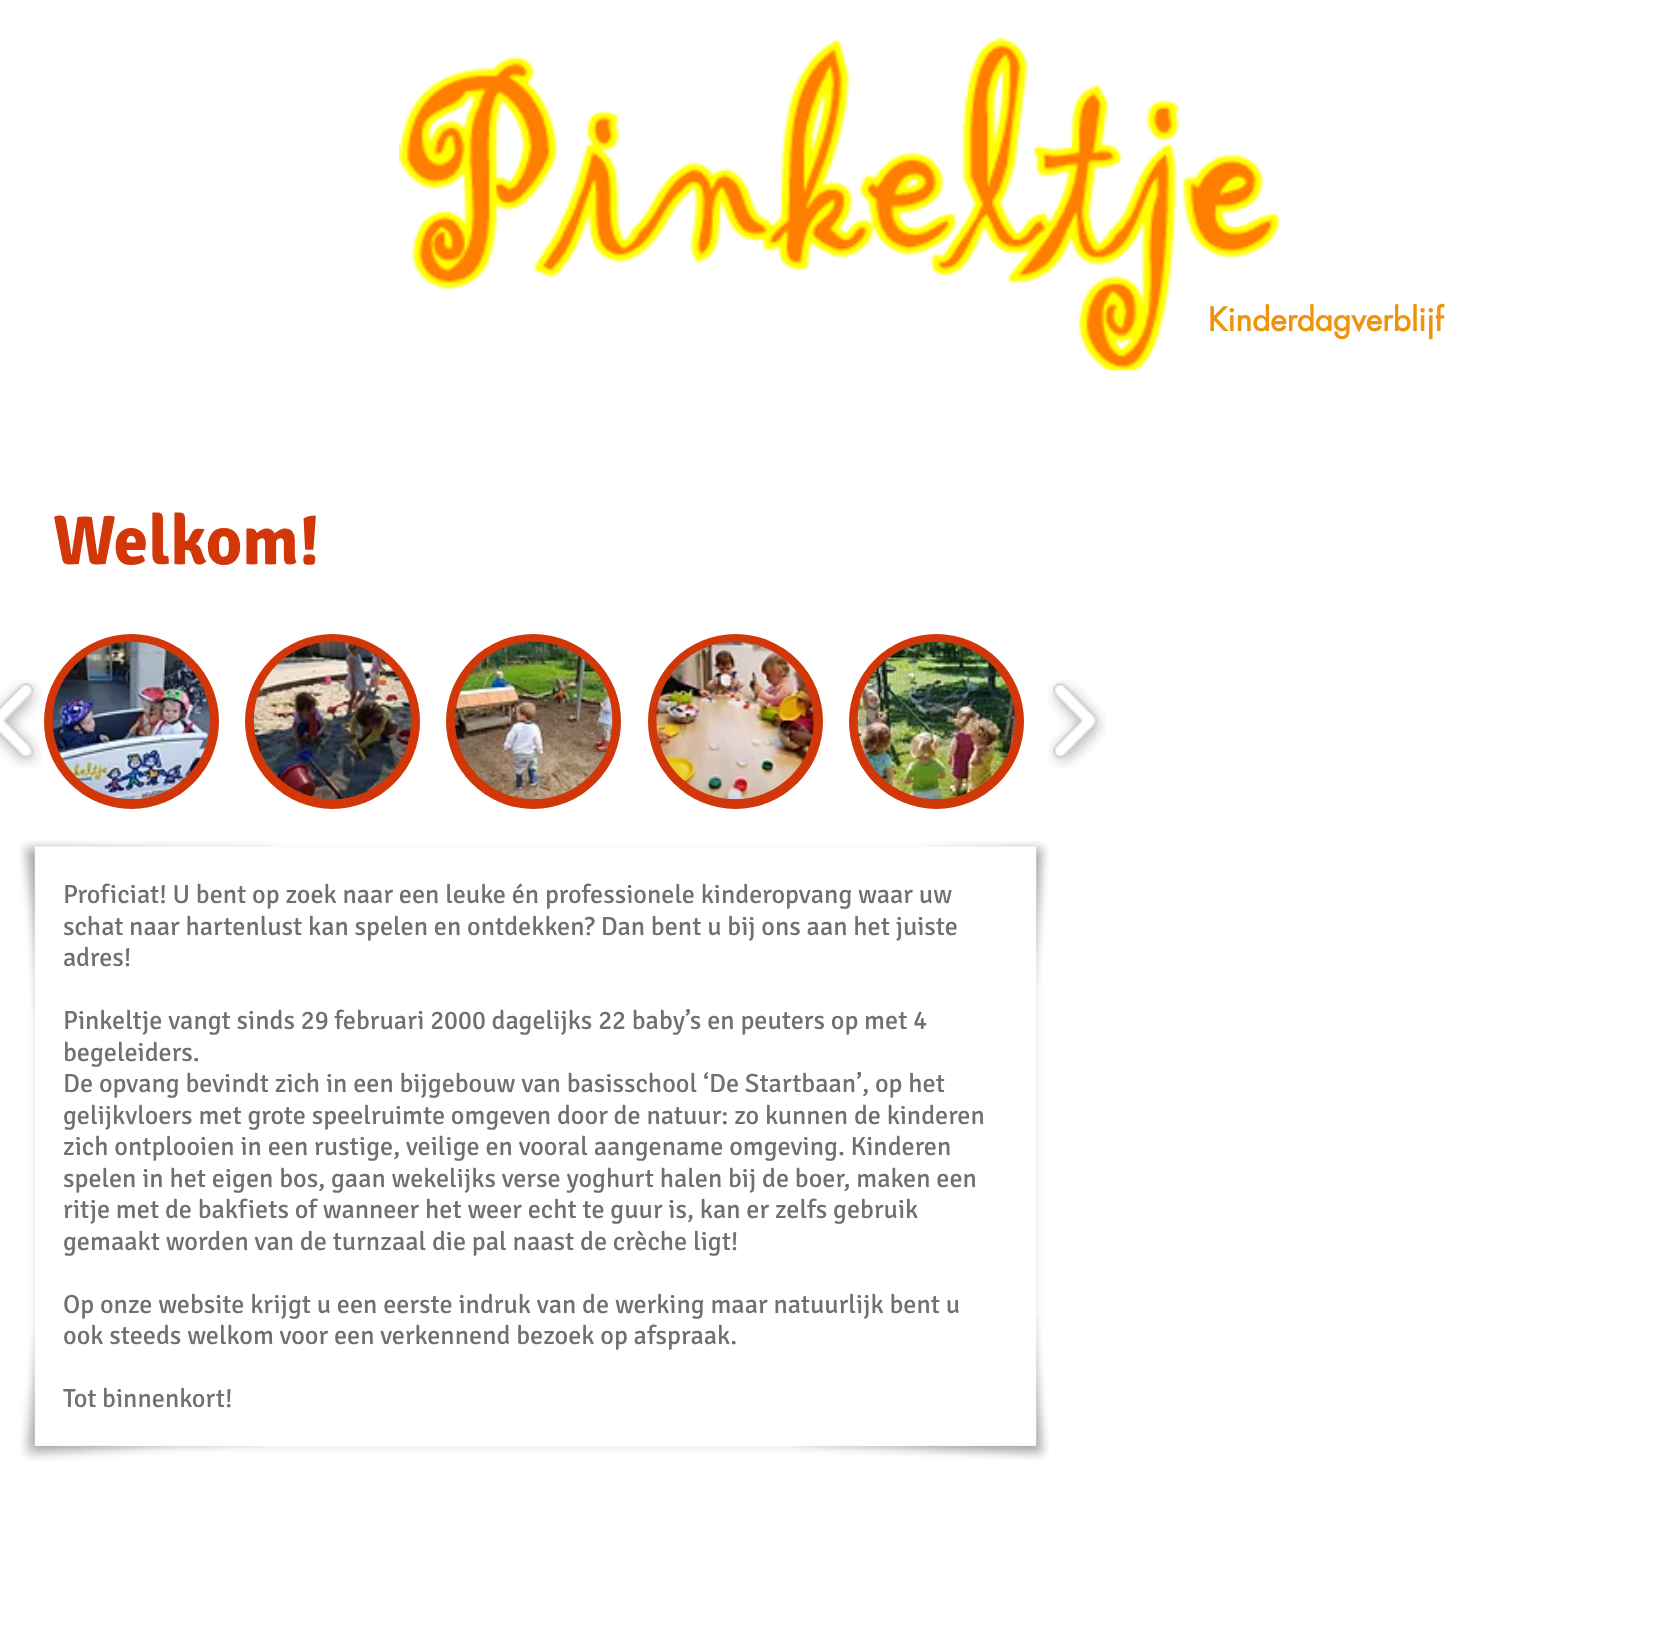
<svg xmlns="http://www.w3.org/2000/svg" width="1667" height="1643">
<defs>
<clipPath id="clip1"><path d="M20 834h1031v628h-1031zm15 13h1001v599h-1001z" clip-rule="evenodd"/></clipPath>
</defs>
<rect width="100%" height="100%" fill="#fff"/>
<image x="399" y="38" width="881" height="333" href="media/1.png"/>
<text x="1208" y="331" style="font-family:futura;font-size:31.5px;font-weight:bold;fill:#ed930c">Kinderdagverblijf</text>
<text x="53" y="564" style="font-family:Signika;font-size:70px;font-weight:bold;fill:#d13708">Welkom!</text>
<image x="0" y="680" width="42" height="88" href="media/2.png"/>
<circle cx="131.5" cy="721.5" r="87.5" fill="#d13708"/>
<image x="52" y="641" width="158" height="159" href="media/3.png"/>
<circle cx="332.5" cy="721.5" r="87.5" fill="#d13708"/>
<image x="253" y="641" width="159" height="159" href="media/4.png"/>
<circle cx="533.5" cy="721.5" r="87.5" fill="#d13708"/>
<image x="455" y="641" width="158" height="159" href="media/5.png"/>
<circle cx="735.5" cy="721.5" r="87.5" fill="#d13708"/>
<image x="656" y="641" width="158" height="159" href="media/6.png"/>
<circle cx="936.5" cy="721.5" r="87.5" fill="#d13708"/>
<image x="857" y="641" width="158" height="159" href="media/7.png"/>
<image x="1048" y="680" width="58" height="88" href="media/8.png"/>
<image x="19" y="840" width="254" height="175" href="media/9.png"/>
<image x="927" y="841" width="122" height="145" href="media/10.png"/>
<image x="20" y="1329" width="242" height="132" href="media/11.png"/>
<image x="792" y="1315" width="257" height="145" href="media/12.png"/>
<g clip-path="url(#clip1)">
<rect x="35" y="849" width="1001" height="598" fill="#0000001a" filter="blur(4.5px)"/>
</g>
<rect x="35" y="847" width="1001" height="599" fill="#ffffffd9"/>
<text x="63" y="903" style="font-family:Signika;font-size:26.25px;fill:#717070">Proficiat! U bent op zoek naar een leuke én professionele kinderopvang waar uw</text>
<text x="63" y="935" style="font-family:Signika;font-size:26.25px;fill:#717070">schat naar hartenlust kan spelen en ontdekken? Dan bent u bij ons aan het juiste</text>
<text x="63" y="966" style="font-family:Signika;font-size:26.25px;fill:#717070">adres!</text>
<text x="63" y="1029" style="font-family:Signika;font-size:26.25px;fill:#717070">Pinkeltje vangt sinds 29 februari 2000 dagelijks 22 baby’s en peuters op met 4</text>
<text x="63" y="1061" style="font-family:Signika;font-size:26.25px;fill:#717070">begeleiders.</text>
<text x="63" y="1092" style="font-family:Signika;font-size:26.25px;fill:#717070">De opvang bevindt zich in een bijgebouw van basisschool ‘De Startbaan’, op het</text>
<text x="63" y="1124" style="font-family:Signika;font-size:26.25px;fill:#717070">gelijkvloers met grote speelruimte omgeven door de natuur: zo kunnen de kinderen</text>
<text x="63" y="1155" style="font-family:Signika;font-size:26.25px;fill:#717070">zich ontplooien in een rustige, veilige en vooral aangename omgeving. Kinderen</text>
<text x="63" y="1187" style="font-family:Signika;font-size:26.25px;fill:#717070">spelen in het eigen bos, gaan wekelijks verse yoghurt halen bij de boer, maken een</text>
<text x="63" y="1218" style="font-family:Signika;font-size:26.25px;fill:#717070">ritje met de bakfiets of wanneer het weer echt te guur is, kan er zelfs gebruik</text>
<text x="63" y="1250" style="font-family:Signika;font-size:26.25px;fill:#717070">gemaakt worden van de turnzaal die pal naast de crèche ligt!</text>
<text x="63" y="1313" style="font-family:Signika;font-size:26.25px;fill:#717070">Op onze website krijgt u een eerste indruk van de werking maar natuurlijk bent u</text>
<text x="63" y="1344" style="font-family:Signika;font-size:26.25px;fill:#717070">ook steeds welkom voor een verkennend bezoek op afspraak.</text>
<text x="63" y="1407" style="font-family:Signika;font-size:26.25px;fill:#717070">Tot binnenkort!</text>
</svg>
